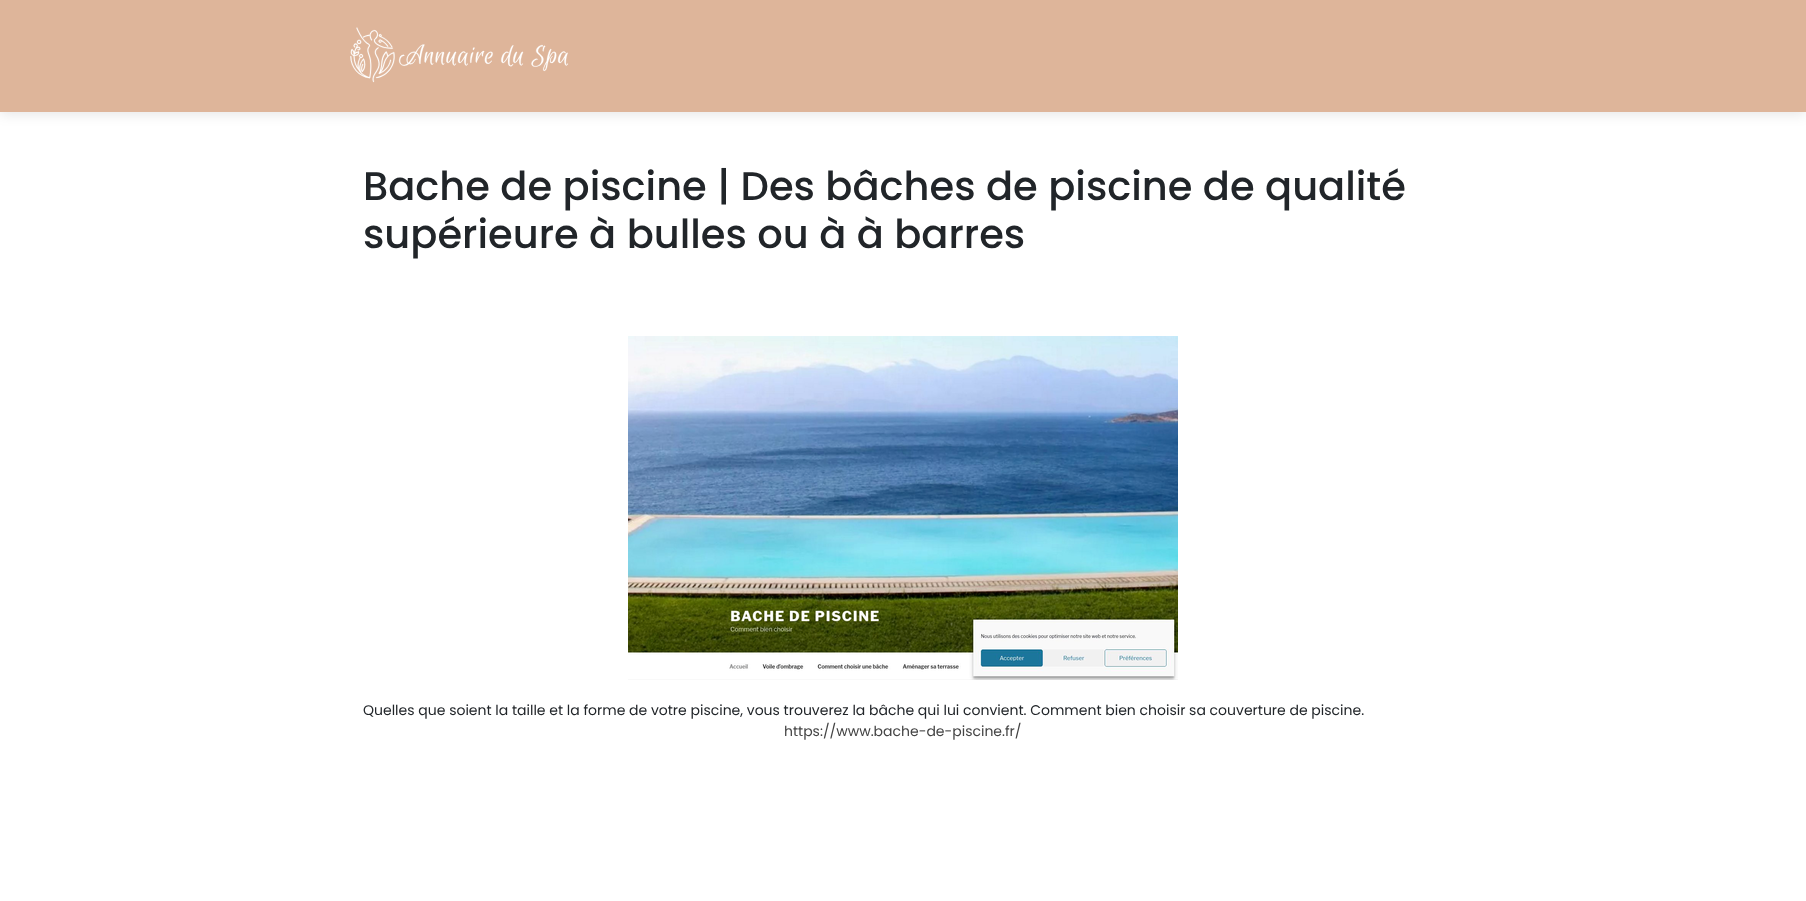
<svg xmlns="http://www.w3.org/2000/svg" width="1806" height="901">
<rect width="100%" height="100%" fill="#fff"/>
<rect y="-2" width="1806" height="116" fill="#0000001a" filter="blur(6.5px)"/>
<rect width="1806" height="112" fill="#deb59a"/>
<image x="350" y="27" width="219" height="56" href="media/1.png"/>
<text x="363" y="200" style="font-family:Poppins;font-size:40px;font-weight:500;fill:#212529">Bache de piscine | Des bâches de piscine de qualité</text>
<text x="363" y="248" style="font-family:Poppins;font-size:40px;font-weight:500;fill:#212529">supérieure à bulles ou à à barres</text>
<image x="628" y="336" width="550" height="344" href="media/2.png"/>
<text x="363" y="715" style="font-family:Poppins;font-size:14px;fill:#212529">Quelles que soient la taille et la forme de votre piscine, vous trouverez la bâche qui lui convient. Comment bien choisir sa couverture de piscine.</text>
<text x="784" y="736" style="font-family:Poppins;font-size:14px;fill:#444">https://www.bache-de-piscine.fr/</text>
</svg>
